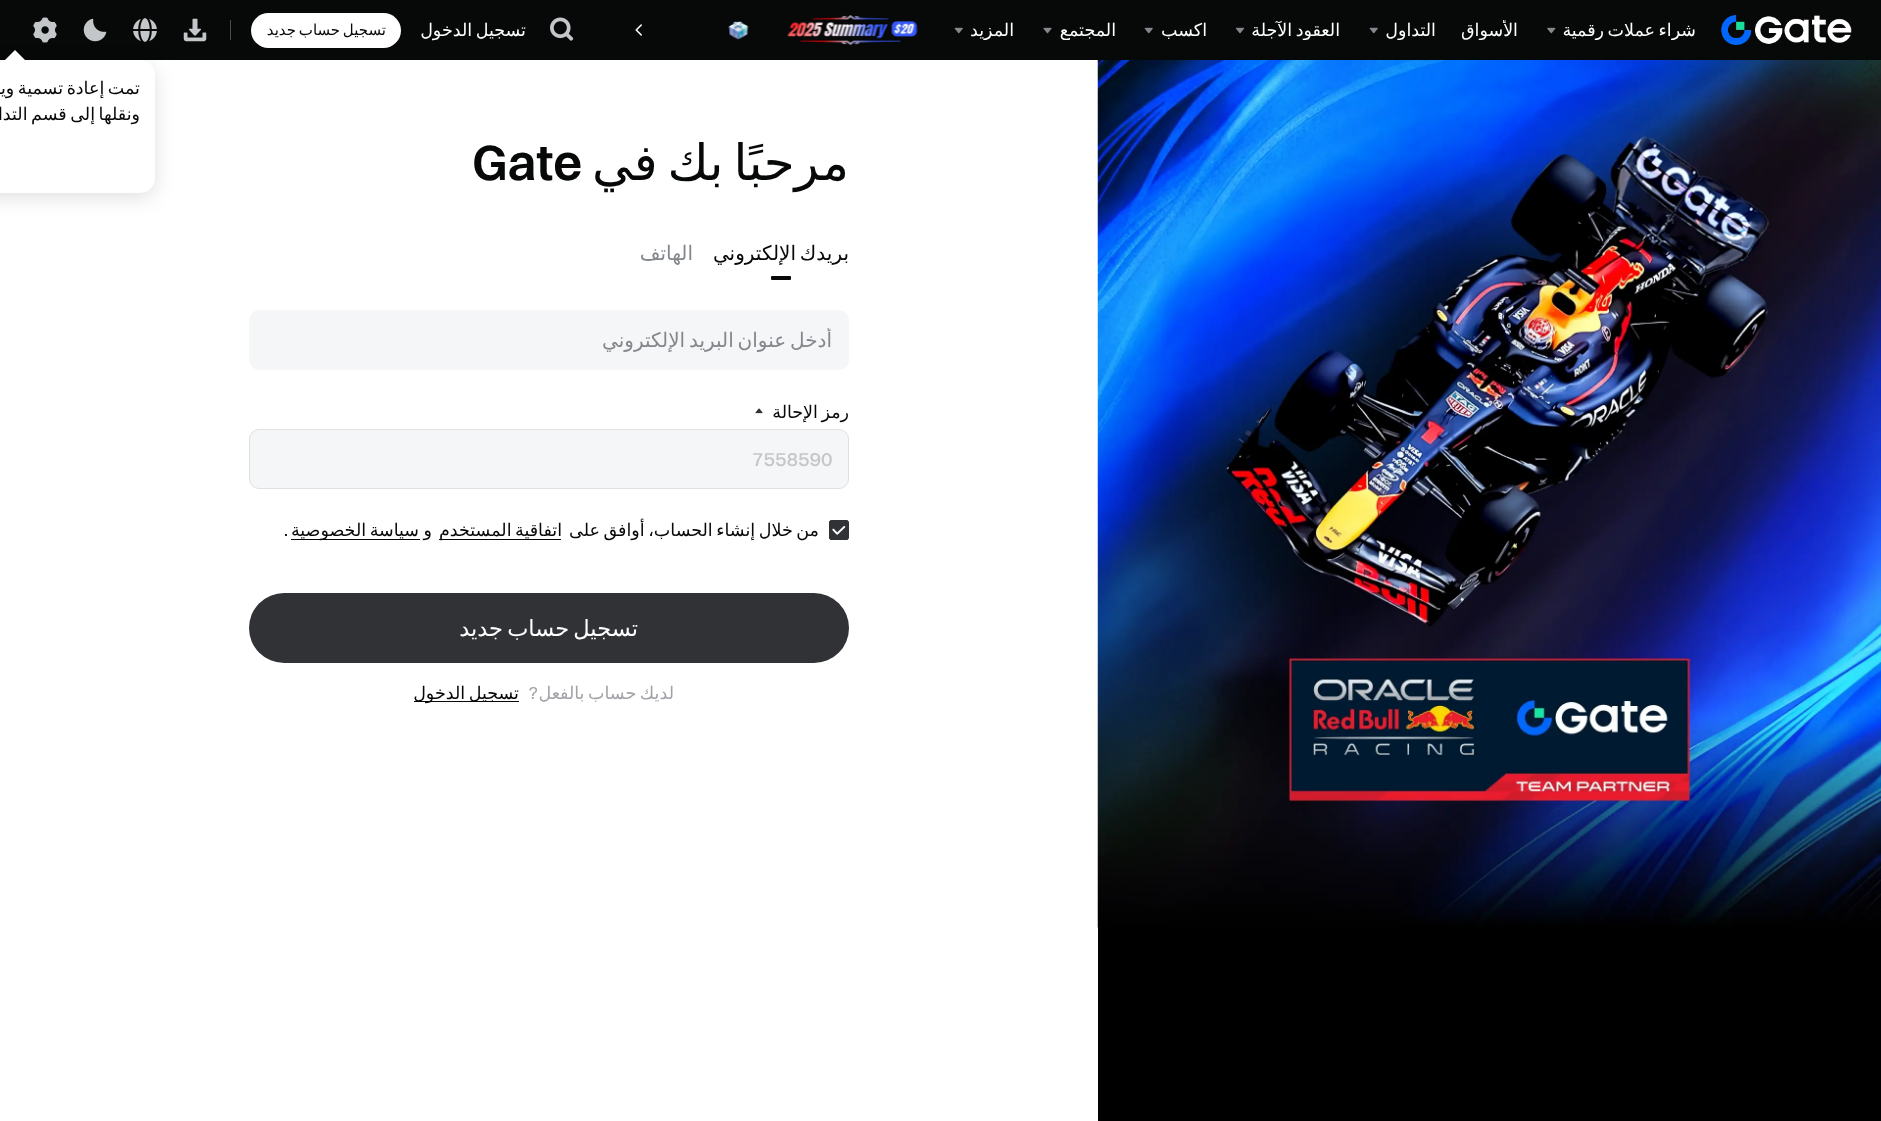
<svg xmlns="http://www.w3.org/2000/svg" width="1881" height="1121">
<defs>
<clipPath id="clip1"><rect x="1543" y="20" width="153" height="20"/></clipPath>
<clipPath id="clip2"><rect x="1461" y="20" width="57" height="20"/></clipPath>
<clipPath id="clip3"><rect x="1365" y="20" width="71" height="20"/></clipPath>
<clipPath id="clip4"><rect x="1231" y="20" width="109" height="20"/></clipPath>
<clipPath id="clip5"><rect x="1039" y="20" width="76" height="20"/></clipPath>
<clipPath id="clip6"><rect x="950" y="20" width="64" height="20"/></clipPath>
<clipPath id="clip7"><rect x="300" y="328" width="533" height="26"/></clipPath>
</defs>
<rect width="100%" height="100%" fill="#fff"/>
<rect width="1881" height="60" fill="#070808"/>
<image x="1721" y="15" width="131" height="30" href="media/1.png"/>
<g clip-path="url(#clip1)">
<text x="1696" y="36" word-spacing="-2" style="font-family:DejaVu Sans;font-size:17.5px;direction:rtl;fill:#fff">شراء عملات رقمية</text>
</g>
<image x="1547" y="27" width="9" height="7" href="media/2.png"/>
<g clip-path="url(#clip2)">
<text x="1518" y="36" style="font-family:DejaVu Sans;font-size:17.5px;direction:rtl;fill:#fff">الأسواق</text>
</g>
<g clip-path="url(#clip3)">
<text x="1436" y="36" style="font-family:DejaVu Sans;font-size:17.5px;direction:rtl;fill:#fff">التداول</text>
</g>
<image x="1369" y="27" width="9" height="7" href="media/3.png"/>
<g clip-path="url(#clip4)">
<text x="1340" y="36" word-spacing="-2" style="font-family:DejaVu Sans;font-size:17.5px;direction:rtl;fill:#fff">العقود الآجلة</text>
</g>
<image x="1235" y="27" width="10" height="7" href="media/4.png"/>
<text x="1207" y="36" style="font-family:DejaVu Sans;font-size:17.5px;direction:rtl;fill:#fff">اكسب</text>
<image x="1144" y="27" width="9" height="7" href="media/3.png"/>
<g clip-path="url(#clip5)">
<text x="1116" y="36" style="font-family:DejaVu Sans;font-size:17.5px;direction:rtl;fill:#fff">المجتمع</text>
</g>
<image x="1043" y="27" width="9" height="7" href="media/5.png"/>
<g clip-path="url(#clip6)">
<text x="1014" y="36" style="font-family:DejaVu Sans;font-size:17.5px;direction:rtl;fill:#fff">المزيد</text>
</g>
<image x="954" y="27" width="9" height="7" href="media/3.png"/>
<image x="787" y="15" width="131" height="30" href="media/6.png"/>
<image x="728" y="21" width="21" height="19" href="media/7.png"/>
<image x="635" y="24" width="7" height="12" href="media/8.png"/>
<image x="550" y="17" width="24" height="24" href="media/9.png"/>
<text x="526" y="36" word-spacing="-2" style="font-family:DejaVu Sans;font-size:17.5px;direction:rtl;fill:#fff">تسجيل الدخول</text>
<rect x="251" y="13" width="150" height="35" rx="17.5" fill="#fff"/>
<text x="386" y="35" word-spacing="-2" style="font-family:DejaVu Sans;font-size:15px;direction:rtl;fill:#070808">تسجيل حساب جديد</text>
<rect x="230" y="20" width="1" height="20" fill="#484b51"/>
<rect x="-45" y="65" width="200" height="133" rx="15" fill="#0000001f" filter="blur(10px)"/>
<image x="183" y="18" width="24" height="24" href="media/10.png"/>
<image x="133" y="18" width="24" height="24" href="media/11.png"/>
<image x="83" y="18" width="24" height="24" href="media/12.png"/>
<image x="33" y="17" width="24" height="26" href="media/13.png"/>
<rect x="-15" y="60" width="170" height="133" rx="15" fill="#fff"/>
<path d="M25 60h-20l10-10z" fill="#fff"/>
<text x="140" y="94" word-spacing="-2" style="font-family:DejaVu Sans;font-size:17.5px;direction:rtl;fill:#070808">تمت إعادة تسمية ويب</text>
<text x="140" y="120" word-spacing="-2" style="font-family:DejaVu Sans;font-size:17.5px;direction:rtl;fill:#070808">ونقلها إلى قسم التداول</text>
<rect x="1098" y="927" width="783" height="194" fill="#000"/>
<image x="1097" y="60" width="784" height="868" href="media/14.png"/>
<text x="849" y="180" word-spacing="-6" style="font-family:DejaVu Sans;font-size:50px;direction:rtl;fill:#070808">مرحبًا بك في</text>
<text x="472" y="180" style="font-family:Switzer;font-size:50px;font-weight:600;fill:#070808">Gate</text>
<text x="849" y="260" word-spacing="-2.5" style="font-family:DejaVu Sans;font-size:20px;direction:rtl;fill:#070808">بريدك الإلكتروني</text>
<text x="693" y="260" style="font-family:DejaVu Sans;font-size:20px;direction:rtl;fill:#84888c">الهاتف</text>
<rect x="771" y="276" width="20" height="4" rx="1" fill="#070808"/>
<rect x="249" y="310" width="600" height="60" rx="10" fill="#f5f6f7"/>
<g clip-path="url(#clip7)">
<text x="832" y="347" word-spacing="-2.5" style="font-family:DejaVu Sans;font-size:20px;direction:rtl;fill:#84888c">أدخل عنوان البريد الإلكتروني</text>
</g>
<text x="849" y="418" word-spacing="-2" style="font-family:DejaVu Sans;font-size:17.5px;direction:rtl;fill:#070808">رمز الإحالة</text>
<image x="755" y="408" width="8" height="6" href="media/15.png"/>
<rect x="249.5" y="429.5" width="599" height="59" rx="9.5" fill="#f5f6f7" stroke="#dfe0e2"/>
<text x="752" y="466" style="font-family:Switzer;font-size:20px;font-weight:500;fill:#c4c7ca">7558590</text>
<rect x="829.5" y="520.5" width="19" height="19" rx="2" fill="none" stroke="#303236"/>
<image x="829" y="520" width="20" height="20" href="media/16.png"/>
<text x="819" y="536" word-spacing="-2" style="font-family:DejaVu Sans;font-size:17.5px;direction:rtl;fill:#070808">من خلال إنشاء الحساب، أوافق على</text>
<rect x="439" y="539" width="122" height="1" fill="#070808"/>
<text x="562" y="536" word-spacing="-2" style="font-family:DejaVu Sans;font-size:17.5px;direction:rtl;fill:#070808">اتفاقية المستخدم</text>
<text x="432" y="536" style="font-family:DejaVu Sans;font-size:17.5px;direction:rtl;fill:#070808">و</text>
<rect x="291" y="539" width="129" height="1" fill="#070808"/>
<text x="419" y="536" word-spacing="-2" style="font-family:DejaVu Sans;font-size:17.5px;direction:rtl;fill:#070808">سياسة الخصوصية</text>
<text x="284" y="536" style="font-family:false;font-size:17.5px;fill:#070808">.</text>
<rect x="249" y="593" width="600" height="70" rx="35" fill="#303236"/>
<text x="638" y="636" word-spacing="-3" style="font-family:DejaVu Sans;font-size:22.5px;direction:rtl;fill:#fff">تسجيل حساب جديد</text>
<text x="674" y="699" word-spacing="-2" style="font-family:DejaVu Sans;font-size:17.5px;direction:rtl;fill:#a0a3a7">لديك حساب بالفعل</text>
<text x="538" y="699" style="font-family:false;font-size:17.5px;direction:rtl;fill:#a0a3a7">?</text>
<rect x="414" y="701" width="105" height="1" fill="#070808"/>
<text x="519" y="699" word-spacing="-2" style="font-family:DejaVu Sans;font-size:17.5px;direction:rtl;fill:#070808">تسجيل الدخول</text>
</svg>
